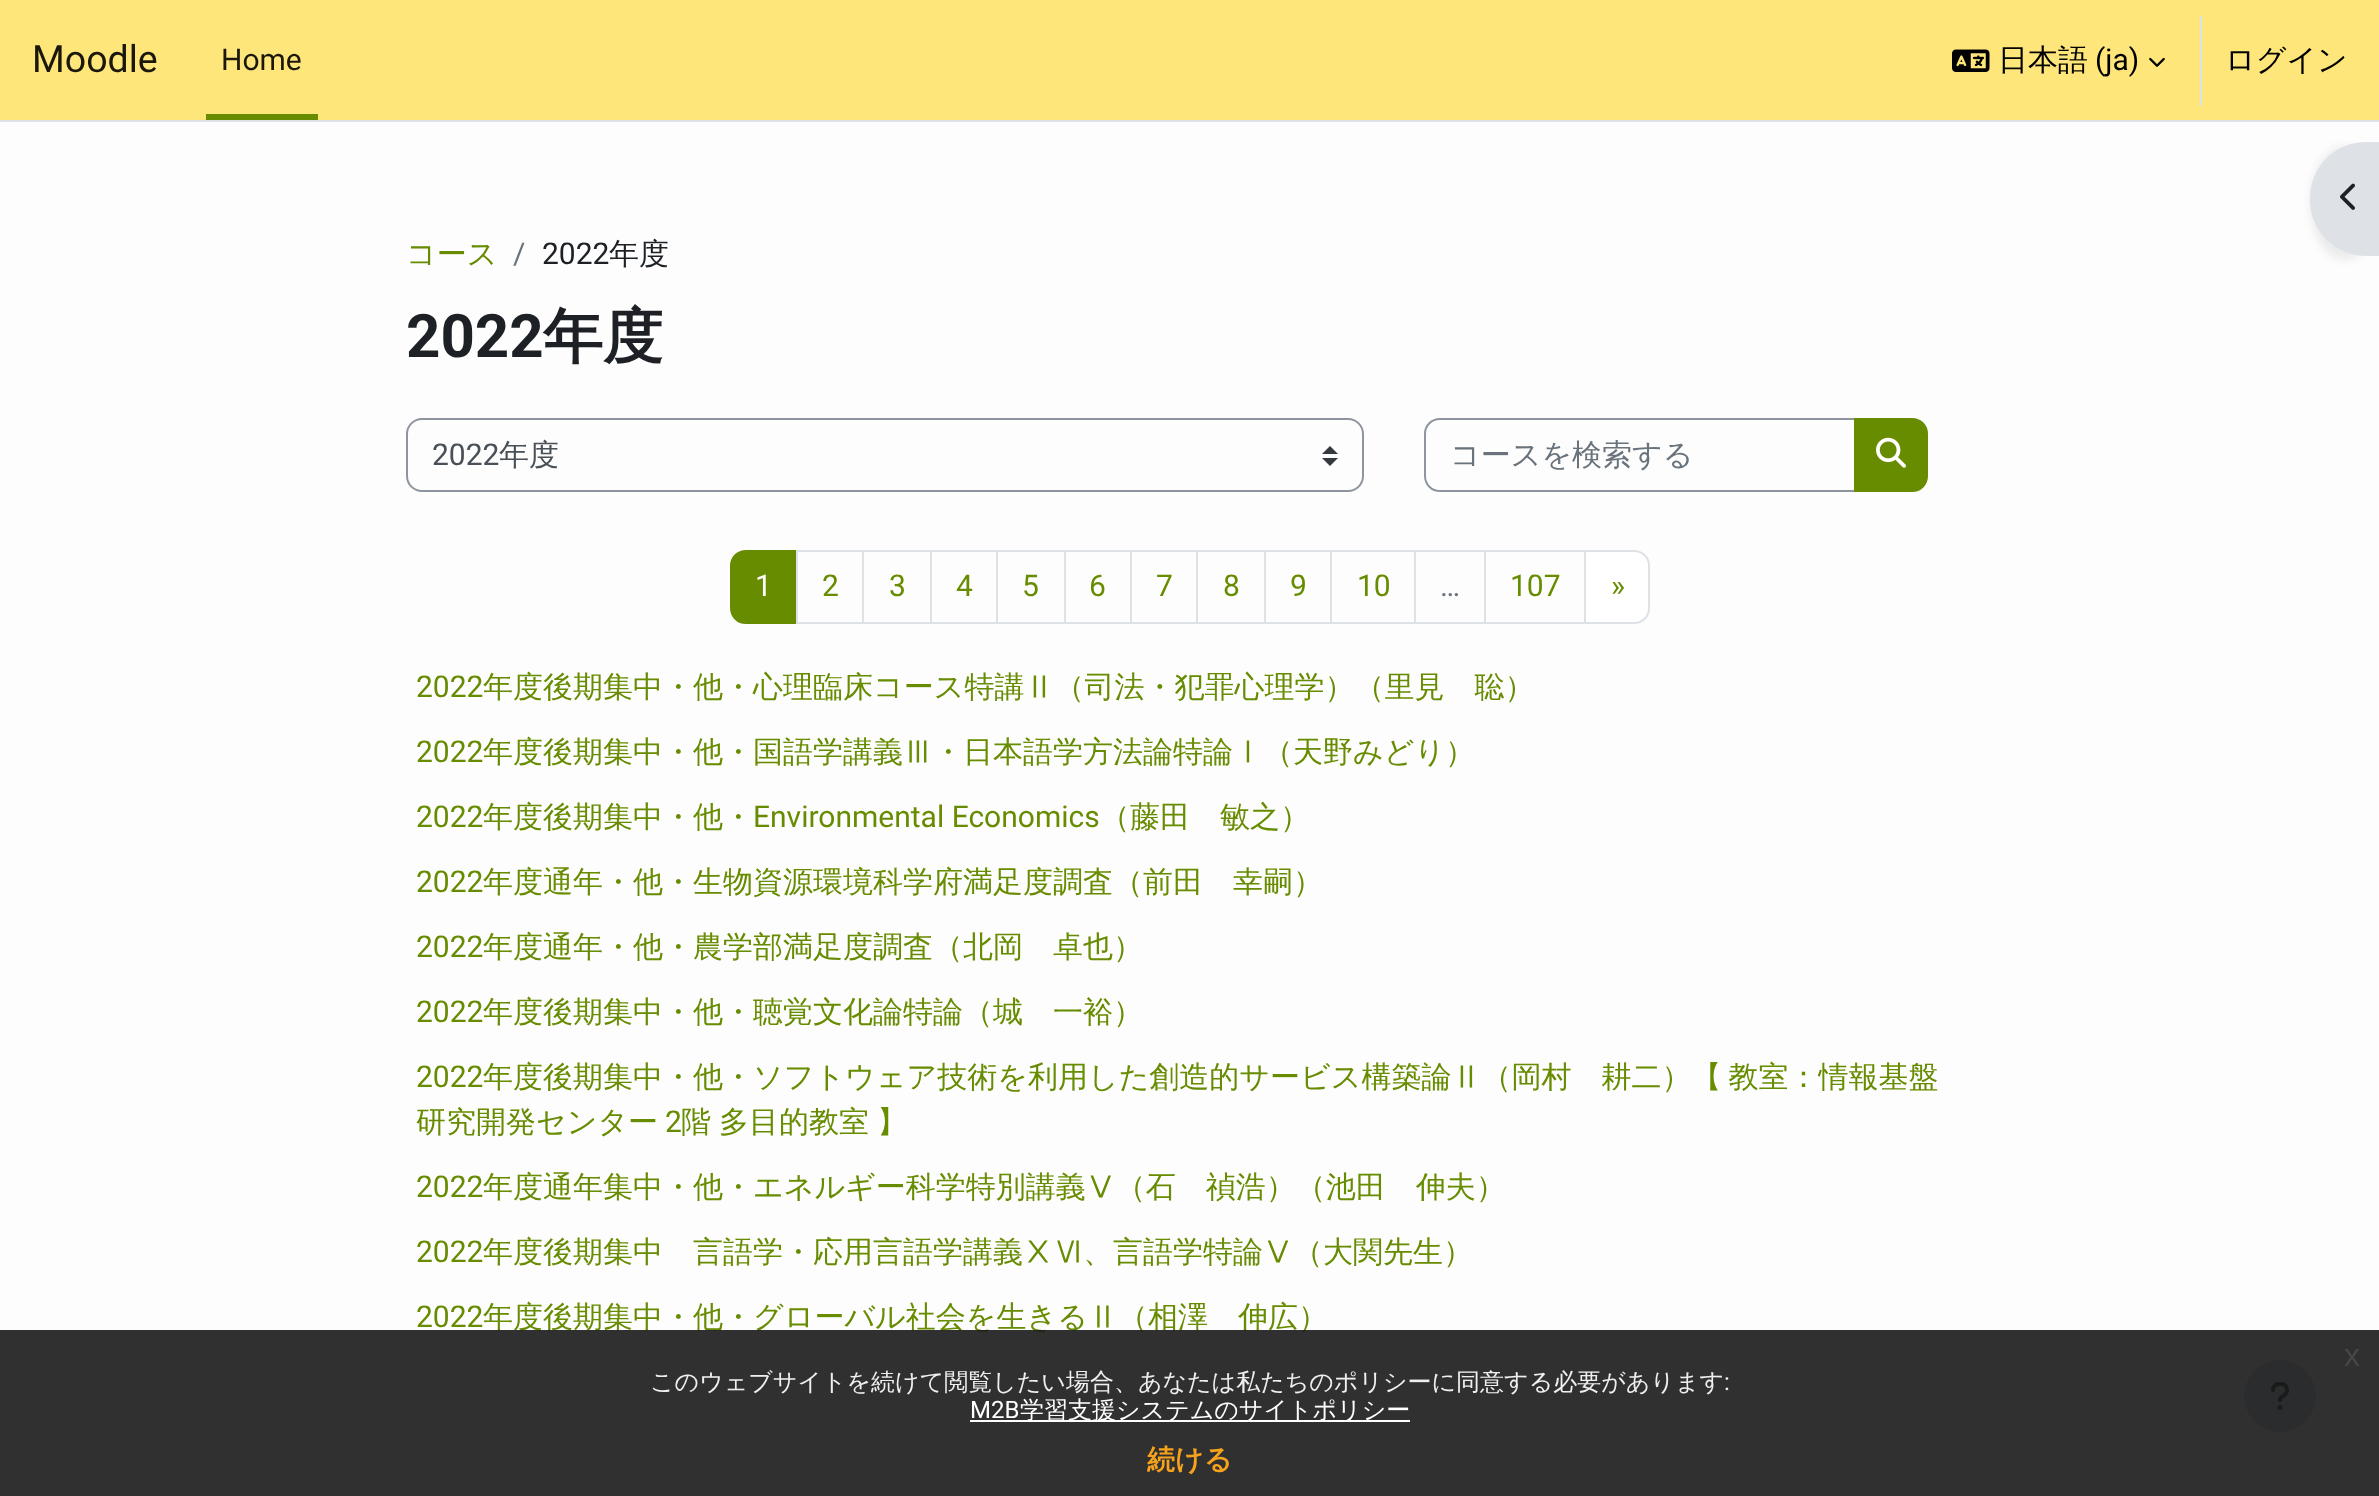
<svg xmlns="http://www.w3.org/2000/svg" width="2379" height="1496">
<rect width="100%" height="100%" fill="#fdfdfd"/>
<rect width="2379" height="120" fill="#ffe67a"/>
<rect y="120" width="2379" height="2" fill="#dee2e6"/>
<text x="32" y="72" style="font-family:Roboto;font-size:37.5px;fill:#1a170c">Moodle</text>
<rect x="206" y="114" width="112" height="6" fill="#678c00"/>
<text x="221" y="70" style="font-family:Roboto;font-size:30px;fill:#1a170c">Home</text>
<image x="1952" y="49" width="38" height="23" href="media/1.png"/>
<text x="1998" y="70" style="font-family:WenQuanYi Zen Hei;font-size:30px;font-weight:500;fill:#000">日本語</text>
<text x="2095" y="70" style="font-family:Roboto;font-size:30px;fill:#000">(ja)</text>
<image x="2149" y="57" width="16" height="10" href="media/2.png"/>
<rect x="2200" y="16" width="2" height="90" fill="#dee2e6"/>
<text x="2225" y="70" style="font-family:WenQuanYi Zen Hei;font-size:30px;font-weight:500;fill:#000">ログイン</text>
<rect x="2310" y="146" width="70" height="114" rx="56" fill="#00000012" filter="blur(4px)"/>
<path d="M2366 142h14v114h-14c-31 0-56-25-56-56v-2c0-31 25-56 56-56z" fill="#dee2e6"/>
<image x="2340" y="183" width="15" height="27" href="media/3.png"/>
<text x="406" y="264" style="font-family:WenQuanYi Zen Hei;font-size:30px;font-weight:500;fill:#678c00">コース</text>
<text x="513" y="264" style="font-family:Roboto;font-size:30px;fill:#6a737b">/</text>
<text x="542" y="264" style="font-family:Roboto;font-size:30px;fill:#1d2125">2022</text>
<text x="609" y="264" style="font-family:WenQuanYi Zen Hei;font-size:30px;font-weight:500;fill:#1d2125">年度</text>
<text x="406" y="357" style="font-family:Roboto;font-size:60px;font-weight:bold;fill:#1d2125">2022</text>
<text x="543" y="357" style="font-family:WenQuanYi Zen Hei;font-size:60px;font-weight:bold;fill:#1d2125">年度</text>
<path d="M1330 446l-8 8h16zm0 20l-8-8h16z" fill="#343a40"/>
<rect x="407" y="419" width="956" height="72" rx="15" fill="none" stroke="#8f959e" stroke-width="2"/>
<text x="432" y="465" style="font-family:Roboto;font-size:30px;fill:#495057">2022</text>
<text x="499" y="465" style="font-family:WenQuanYi Zen Hei;font-size:30px;font-weight:500;fill:#495057">年度</text>
<path d="M1440 419h415v72h-415c-8.5 0-15-6.5-15-15v-42c0-8.5 6.5-15 15-15z" fill="none" stroke="#8f959e" stroke-width="2"/>
<text x="1450" y="465" style="font-family:WenQuanYi Zen Hei;font-size:30px;font-weight:500;fill:#6a737b">コースを検索する</text>
<path d="M1855 419h57c8.5 0 15 6.5 15 15v42c0 8.5-6.5 15-15 15h-57z" fill="#678c00" stroke="#678c00" stroke-width="2"/>
<image x="1876" y="437" width="30" height="31" href="media/4.png"/>
<path d="M746 551h51v72h-51c-8.5 0-15-6.5-15-15v-42c0-8.5 6.5-15 15-15z" fill="#678c00" stroke="#678c00" stroke-width="2"/>
<text x="755" y="596" style="font-family:Roboto;font-size:30px;fill:#fff">1</text>
<rect x="797" y="551" width="66" height="72" fill="none" stroke="#dee2e6" stroke-width="2"/>
<text x="822" y="596" style="font-family:Roboto;font-size:30px;fill:#678c00">2</text>
<rect x="863" y="551" width="68" height="72" fill="none" stroke="#dee2e6" stroke-width="2"/>
<text x="889" y="596" style="font-family:Roboto;font-size:30px;fill:#678c00">3</text>
<rect x="931" y="551" width="66" height="72" fill="none" stroke="#dee2e6" stroke-width="2"/>
<text x="956" y="596" style="font-family:Roboto;font-size:30px;fill:#678c00">4</text>
<rect x="997" y="551" width="68" height="72" fill="none" stroke="#dee2e6" stroke-width="2"/>
<text x="1022" y="596" style="font-family:Roboto;font-size:30px;fill:#678c00">5</text>
<rect x="1065" y="551" width="66" height="72" fill="none" stroke="#dee2e6" stroke-width="2"/>
<text x="1089" y="596" style="font-family:Roboto;font-size:30px;fill:#678c00">6</text>
<rect x="1131" y="551" width="66" height="72" fill="none" stroke="#dee2e6" stroke-width="2"/>
<text x="1156" y="596" style="font-family:Roboto;font-size:30px;fill:#678c00">7</text>
<rect x="1197" y="551" width="68" height="72" fill="none" stroke="#dee2e6" stroke-width="2"/>
<text x="1223" y="596" style="font-family:Roboto;font-size:30px;fill:#678c00">8</text>
<rect x="1265" y="551" width="66" height="72" fill="none" stroke="#dee2e6" stroke-width="2"/>
<text x="1290" y="596" style="font-family:Roboto;font-size:30px;fill:#678c00">9</text>
<rect x="1331" y="551" width="84" height="72" fill="none" stroke="#dee2e6" stroke-width="2"/>
<text x="1357" y="596" style="font-family:Roboto;font-size:30px;fill:#678c00">10</text>
<rect x="1415" y="551" width="70" height="72" fill="none" stroke="#dee2e6" stroke-width="2"/>
<rect x="1485" y="551" width="100" height="72" fill="none" stroke="#dee2e6" stroke-width="2"/>
<text x="1510" y="596" style="font-family:Roboto;font-size:30px;fill:#678c00">107</text>
<path d="M1585 551h49c8.5 0 15 6.5 15 15v42c0 8.5-6.5 15-15 15h-49z" fill="#fff" stroke="#dee2e6" stroke-width="2"/>
<text x="1611" y="596" style="font-family:Roboto;font-size:30px;fill:#678c00">»</text>
<text x="1440" y="596" style="font-family:Roboto;font-size:30px;fill:#6a737b">…</text>
<text x="416" y="697" style="font-family:Roboto;font-size:30px;fill:#678c00">2022</text>
<text x="483" y="697" style="font-family:WenQuanYi Zen Hei;font-size:30px;font-weight:500;fill:#678c00">年度後期集中・他・心理臨床コース特講Ⅱ（司法・犯罪心理学）（里見　聡）</text>
<text x="416" y="762" style="font-family:Roboto;font-size:30px;fill:#678c00">2022</text>
<text x="483" y="762" style="font-family:WenQuanYi Zen Hei;font-size:30px;font-weight:500;fill:#678c00">年度後期集中・他・国語学講義Ⅲ・日本語学方法論特論Ⅰ（天野みどり）</text>
<text x="416" y="827" style="font-family:Roboto;font-size:30px;fill:#678c00">2022</text>
<text x="483" y="827" style="font-family:WenQuanYi Zen Hei;font-size:30px;font-weight:500;fill:#678c00">年度後期集中・他・</text>
<text x="753" y="827" style="font-family:Roboto;font-size:30px;fill:#678c00">Environmental Economics</text>
<text x="1100" y="827" style="font-family:WenQuanYi Zen Hei;font-size:30px;font-weight:500;fill:#678c00">（藤田　敏之）</text>
<text x="416" y="892" style="font-family:Roboto;font-size:30px;fill:#678c00">2022</text>
<text x="483" y="892" style="font-family:WenQuanYi Zen Hei;font-size:30px;font-weight:500;fill:#678c00">年度通年・他・生物資源環境科学府満足度調査（前田　幸嗣）</text>
<text x="416" y="957" style="font-family:Roboto;font-size:30px;fill:#678c00">2022</text>
<text x="483" y="957" style="font-family:WenQuanYi Zen Hei;font-size:30px;font-weight:500;fill:#678c00">年度通年・他・農学部満足度調査（北岡　卓也）</text>
<text x="416" y="1022" style="font-family:Roboto;font-size:30px;fill:#678c00">2022</text>
<text x="483" y="1022" style="font-family:WenQuanYi Zen Hei;font-size:30px;font-weight:500;fill:#678c00">年度後期集中・他・聴覚文化論特論（城　一裕）</text>
<text x="416" y="1087" style="font-family:Roboto;font-size:30px;fill:#678c00">2022</text>
<text x="483" y="1087" word-spacing="-2" style="font-family:WenQuanYi Zen Hei;font-size:30px;font-weight:500;fill:#678c00">年度後期集中・他・ソフトウェア技術を利用した創造的サービス構築論Ⅱ（岡村　耕二）【 教室：情報基盤</text>
<text x="416" y="1132" style="font-family:WenQuanYi Zen Hei;font-size:30px;font-weight:500;fill:#678c00">研究開発センター</text>
<text x="665" y="1132" style="font-family:Roboto;font-size:30px;fill:#678c00">2</text>
<text x="681" y="1132" word-spacing="-1" style="font-family:WenQuanYi Zen Hei;font-size:30px;font-weight:500;fill:#678c00">階 多目的教室 】</text>
<text x="416" y="1197" style="font-family:Roboto;font-size:30px;fill:#678c00">2022</text>
<text x="483" y="1197" style="font-family:WenQuanYi Zen Hei;font-size:30px;font-weight:500;fill:#678c00">年度通年集中・他・エネルギー科学特別講義Ⅴ（石　禎浩）（池田　伸夫）</text>
<text x="416" y="1262" style="font-family:Roboto;font-size:30px;fill:#678c00">2022</text>
<text x="483" y="1262" style="font-family:WenQuanYi Zen Hei;font-size:30px;font-weight:500;fill:#678c00">年度後期集中　言語学・応用言語学講義ⅩⅥ、言語学特論Ⅴ（大関先生）</text>
<text x="416" y="1327" style="font-family:Roboto;font-size:30px;fill:#678c00">2022</text>
<text x="483" y="1327" style="font-family:WenQuanYi Zen Hei;font-size:30px;font-weight:500;fill:#678c00">年度後期集中・他・グローバル社会を生きるⅡ（相澤　伸広）</text>
<circle cx="2280" cy="1396" r="36" fill="#ced4da"/>
<image x="2271" y="1382" width="18" height="28" href="media/5.png"/>
<rect y="1330" width="2379" height="166" fill="#191919e6"/>
<text x="2344" y="1366" style="font-family:Liberation Sans;font-size:32px;fill:#474747">x</text>
<text x="650" y="1390" style="font-family:WenQuanYi Zen Hei;font-size:24px;font-weight:500;fill:#efefef">このウェブサイトを続けて閲覧したい場合、あなたは私たちのポリシーに同意する必要があります</text>
<text x="1724" y="1390" style="font-family:Roboto;font-size:24px;fill:#efefef">:</text>
<text x="970" y="1418" style="font-family:Roboto;font-size:24px;fill:#fff">M2B</text>
<rect x="970" y="1420" width="440" height="2" fill="#fff"/>
<text x="1020" y="1418" style="font-family:WenQuanYi Zen Hei;font-size:24px;font-weight:500;fill:#fff">学習支援システムのサイトポリシー</text>
<text x="1147" y="1469" style="font-family:WenQuanYi Zen Hei;font-size:28px;font-weight:bold;fill:#f6a21d">続ける</text>
</svg>
